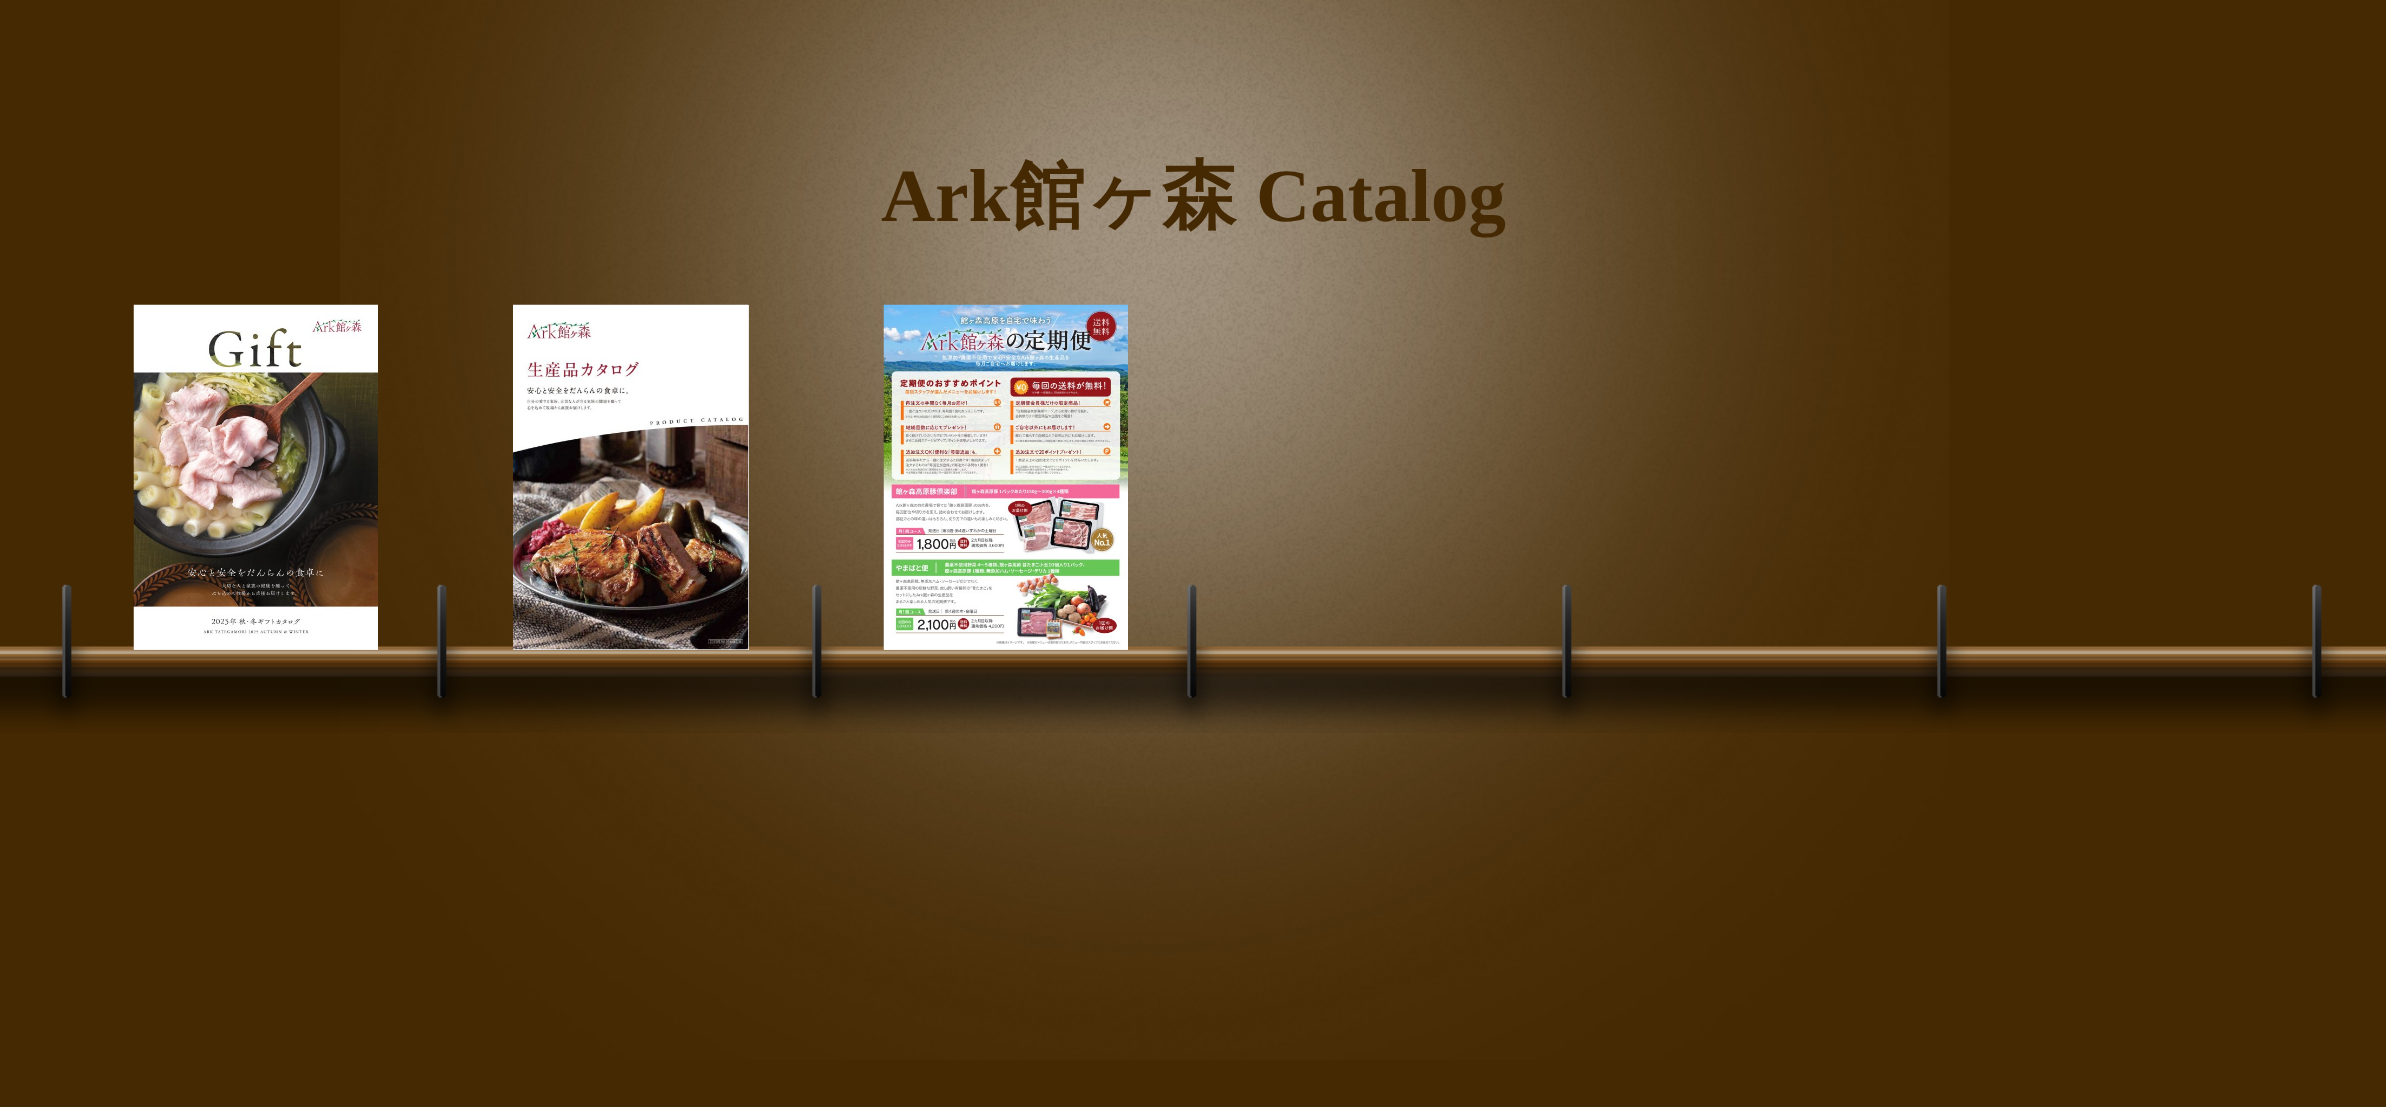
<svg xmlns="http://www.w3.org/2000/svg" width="2386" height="1107">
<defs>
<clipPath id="clip1"><rect x="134" y="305" width="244" height="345"/></clipPath>
<clipPath id="clip2"><rect x="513" y="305" width="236" height="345"/></clipPath>
<clipPath id="clip3"><rect x="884" y="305" width="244" height="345"/></clipPath>
</defs>
<rect width="100%" height="100%" fill="#452902"/>
<image x="340" y="0" width="1609" height="1060" href="media/1.png"/>
<text x="881" y="221" style="font-family:Liberation Serif;font-size:75px;font-weight:bold;fill:#452902">Ark</text>
<text x="1010" y="221" style="font-family:WenQuanYi Zen Hei;font-size:75px;font-weight:bold;fill:#452902">館ヶ森</text>
<text x="1256" y="221" style="font-family:Liberation Serif;font-size:75px;font-weight:bold;fill:#452902">Catalog</text>
<image x="0" y="584" width="2386" height="149" href="media/2.png"/>
<rect x="134" y="649" width="244" height="1" fill="#fff"/>
<g clip-path="url(#clip1)">
<rect x="134" y="312" width="244" height="345" fill="#0000001a" filter="blur(15px)"/>
</g>
<image x="133" y="304" width="245" height="346" href="media/3.png"/>
<rect x="513" y="305" width="236" height="345" fill="#fff"/>
<g clip-path="url(#clip2)">
<rect x="513" y="312" width="236" height="345" fill="#0000001a" filter="blur(15px)"/>
</g>
<image x="513" y="304" width="236" height="346" href="media/4.png"/>
<rect x="884" y="649" width="244" height="1" fill="#fff"/>
<g clip-path="url(#clip3)">
<rect x="884" y="312" width="244" height="345" fill="#0000001a" filter="blur(15px)"/>
</g>
<image x="883" y="304" width="245" height="346" href="media/5.png"/>
</svg>
